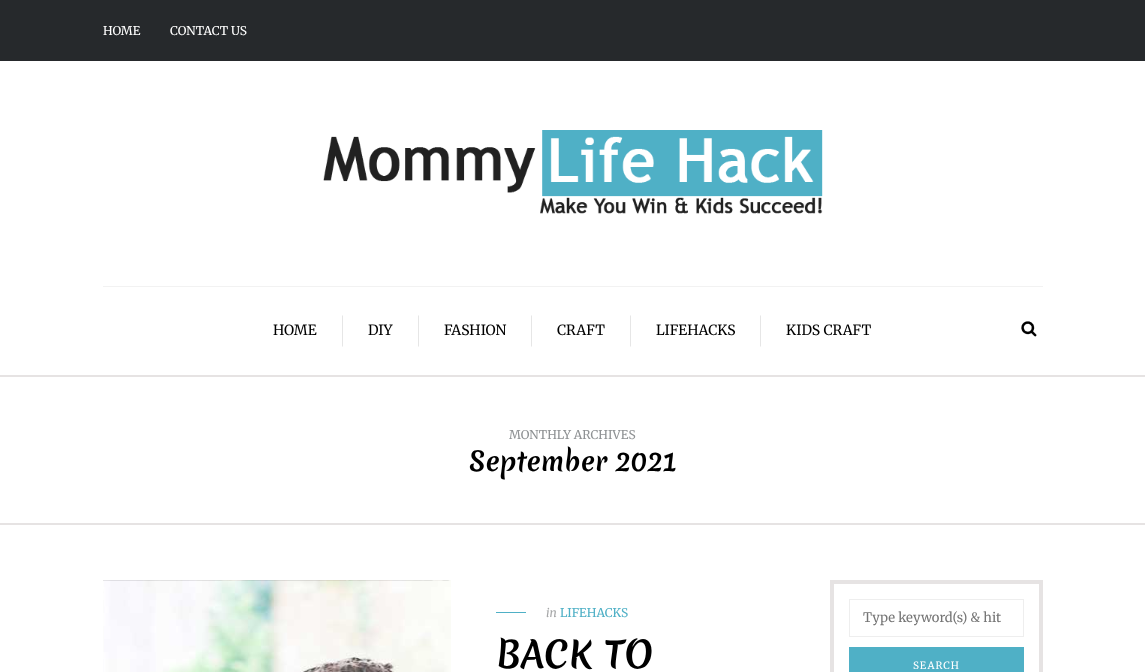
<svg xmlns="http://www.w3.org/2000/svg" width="1145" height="672">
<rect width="100%" height="100%" fill="#fff"/>
<rect width="1145" height="61" fill="#26292c"/>
<text x="103" y="35" style="font-family:Merriweather;font-size:12px;fill:#fff">HOME</text>
<text x="170" y="35" style="font-family:Merriweather;font-size:12px;fill:#fff">CONTACT US</text>
<image x="323" y="130" width="500" height="84" href="media/1.png"/>
<rect x="103" y="286" width="940" height="1" fill="#f2f2f2"/>
<path d="M343 315v32l-1-1v-30z" fill="#e6e6e6"/>
<text x="273" y="335" style="font-family:Merriweather;font-size:14px;fill:#000">HOME</text>
<path d="M419 315v32l-1-1v-30z" fill="#e6e6e6"/>
<text x="368" y="335" style="font-family:Merriweather;font-size:14px;fill:#000">DIY</text>
<path d="M532 315v32l-1-1v-30z" fill="#e6e6e6"/>
<text x="444" y="335" style="font-family:Merriweather;font-size:14px;fill:#000">FASHION</text>
<path d="M631 315v32l-1-1v-30z" fill="#e6e6e6"/>
<text x="557" y="335" style="font-family:Merriweather;font-size:14px;fill:#000">CRAFT</text>
<path d="M761 315v32l-1-1v-30z" fill="#e6e6e6"/>
<text x="656" y="335" style="font-family:Merriweather;font-size:14px;fill:#000">LIFEHACKS</text>
<text x="786" y="335" style="font-family:Merriweather;font-size:14px;fill:#000">KIDS CRAFT</text>
<image x="1021" y="321" width="16" height="16" href="media/2.png"/>
<rect y="375" width="1145" height="2" fill="#e6e3e3"/>
<rect y="523" width="1145" height="2" fill="#e6e3e3"/>
<text x="509" y="439" style="font-family:Merriweather;font-size:12px;fill:#8f9294">MONTHLY ARCHIVES</text>
<text x="469" y="471" style="font-family:Merienda;font-size:26px;font-weight:bold;fill:#000">September 2021</text>
<image x="103" y="580" width="348" height="92" href="media/3.png"/>
<rect x="496" y="612" width="30" height="1" fill="#4fb0c6"/>
<text x="546" y="617" style="font-family:Merriweather;font-size:12px;font-style:italic;fill:#a6a7a8">in</text>
<text x="560" y="617" style="font-family:Merriweather;font-size:12px;fill:#4fb0c6">LIFEHACKS</text>
<text x="496" y="668" style="font-family:Merienda;font-size:36px;font-weight:bold;fill:#000">BACK TO</text>
<rect x="832" y="582" width="209" height="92" fill="none" stroke="#e6e3e3" stroke-width="4"/>
<rect x="849.5" y="599.5" width="174" height="37" fill="none" stroke="#eee"/>
<text x="863" y="622" style="font-family:Merriweather;font-size:13px;fill:#757575">Type keyword(s) &amp; hit</text>
<rect x="849" y="647" width="175" height="25" fill="#4fb0c6"/>
<text x="913" y="669" style="font-family:Merriweather;font-size:10px;letter-spacing:1px;fill:#fff">SEARCH</text>
</svg>
